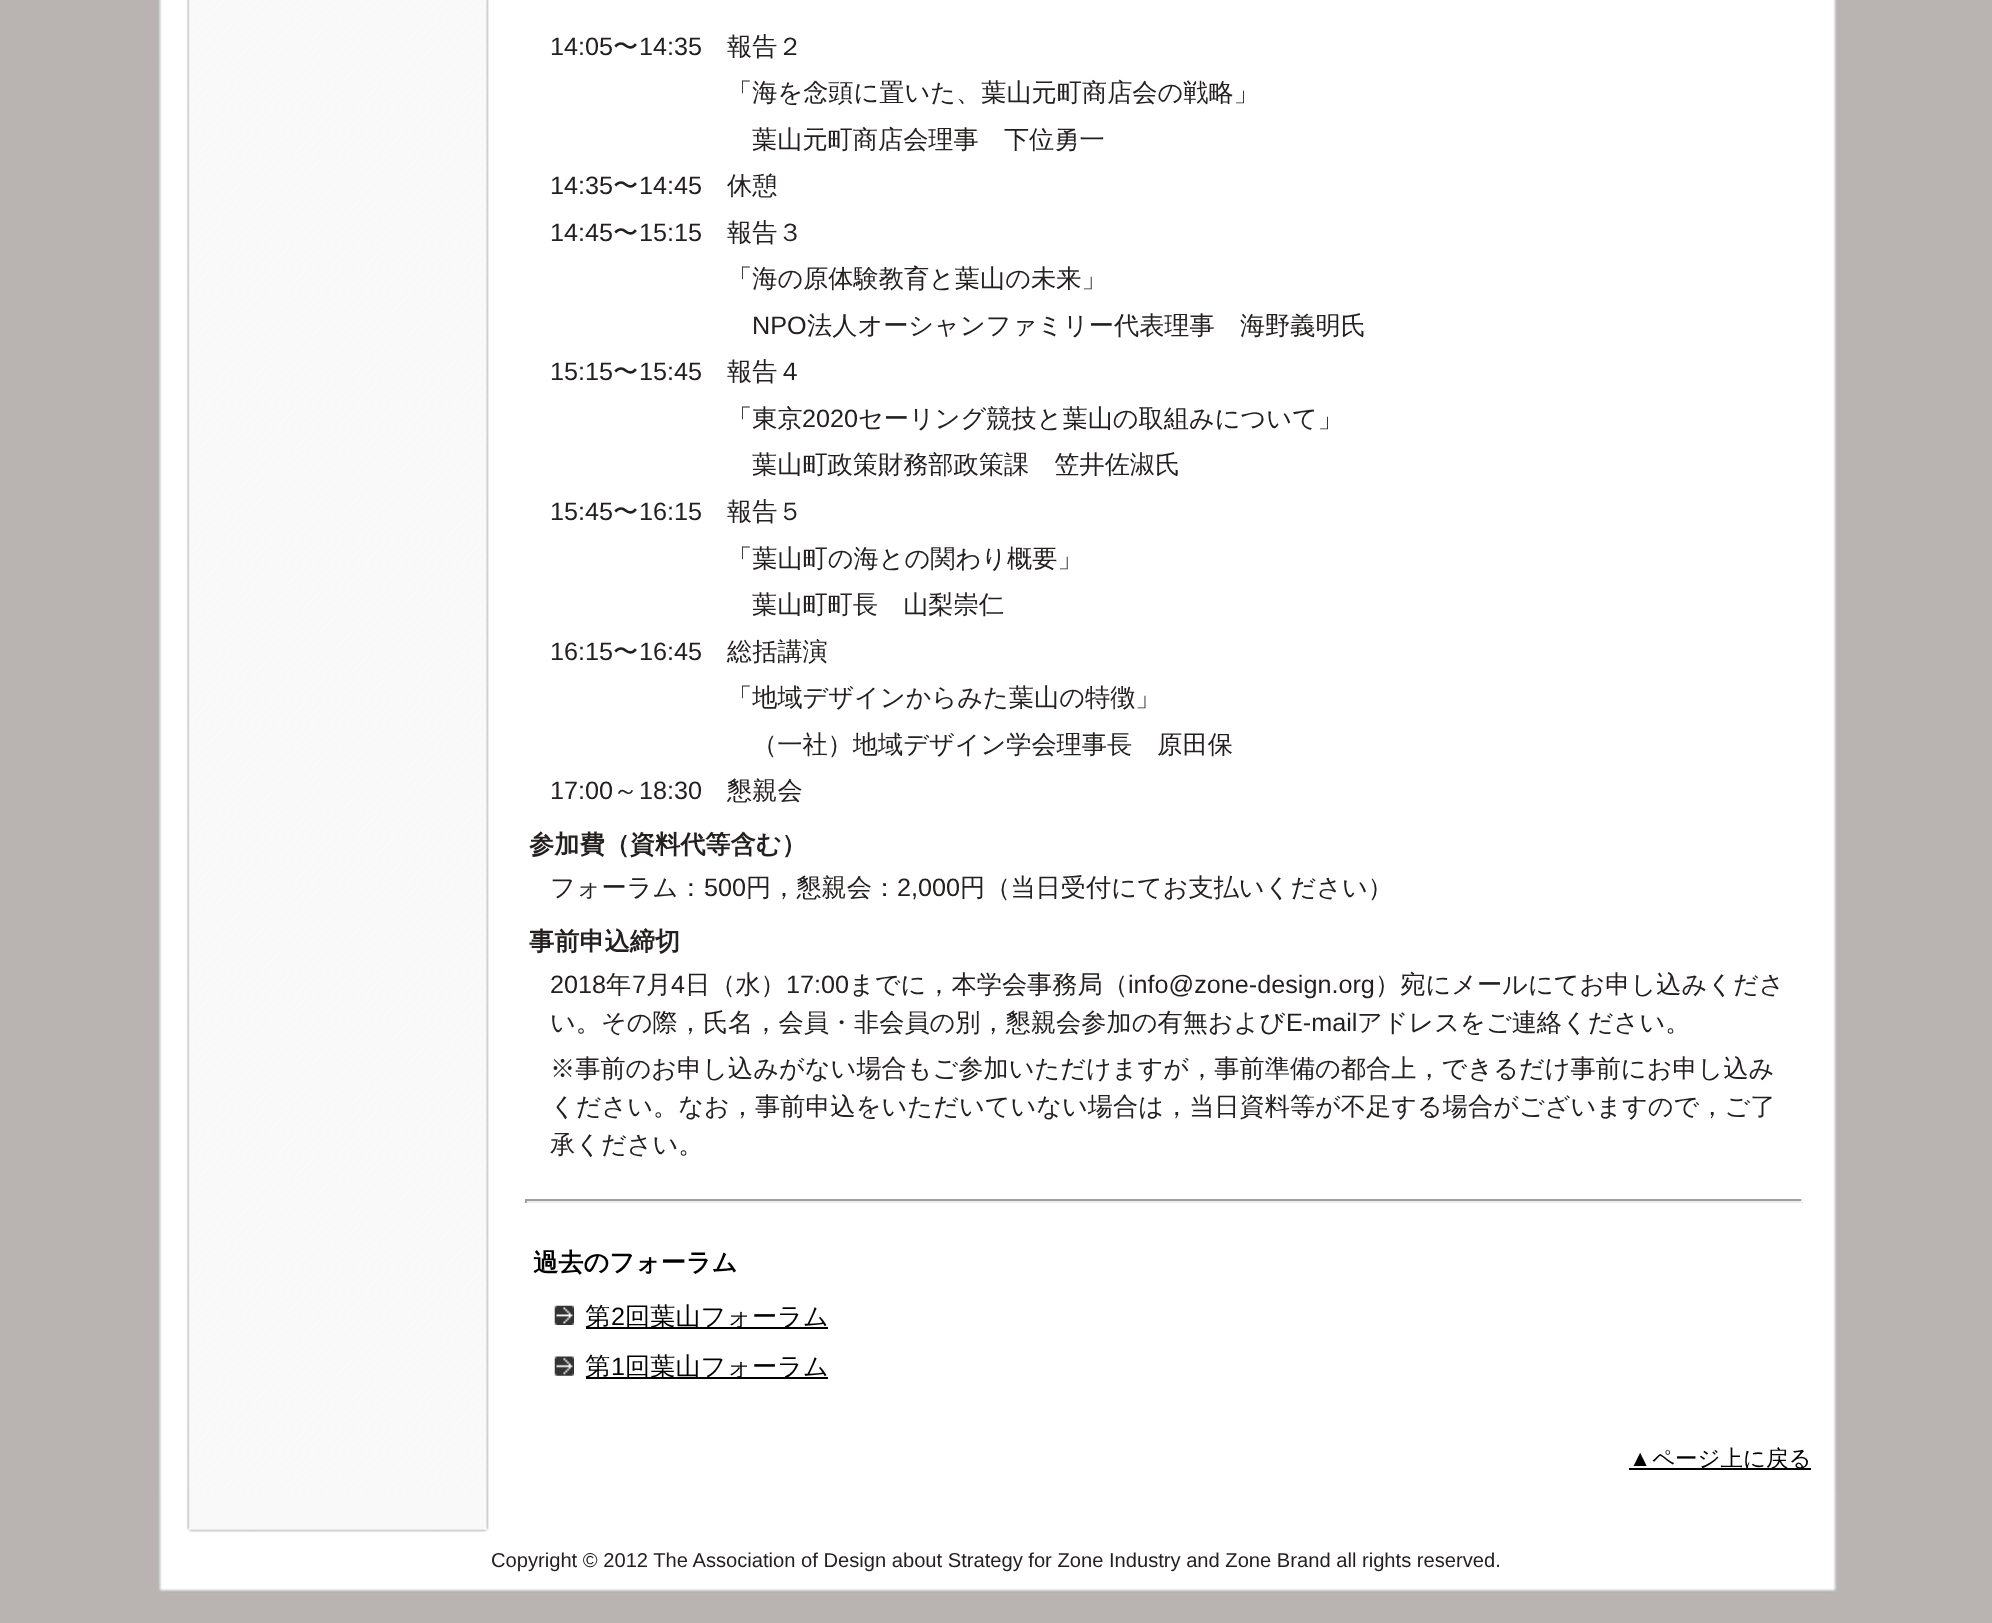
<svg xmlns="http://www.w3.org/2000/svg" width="1992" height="1623">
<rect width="100%" height="100%" fill="#b9b4b2"/>
<image x="158" y="0" width="1679" height="1493" href="media/1.png"/>
<text x="550" y="55" style="font-family:Liberation Sans;font-size:25.2px;fill:#242020">14:05</text>
<text x="613" y="55" style="font-family:WenQuanYi Zen Hei;font-size:25.2px;font-weight:500;fill:#242020">〜</text>
<text x="639" y="55" style="font-family:Liberation Sans;font-size:25.2px;fill:#242020">14:35</text>
<text x="727" y="55" style="font-family:WenQuanYi Zen Hei;font-size:25.2px;font-weight:500;fill:#242020">報告２</text>
<text x="727" y="101" style="font-family:WenQuanYi Zen Hei;font-size:25.2px;font-weight:500;fill:#242020">「海を念頭に置いた、葉山元町商店会の戦略」</text>
<text x="752" y="148" style="font-family:WenQuanYi Zen Hei;font-size:25.2px;font-weight:500;fill:#242020">葉山元町商店会理事　下位勇一</text>
<text x="550" y="194" style="font-family:Liberation Sans;font-size:25.2px;fill:#242020">14:35</text>
<text x="613" y="194" style="font-family:WenQuanYi Zen Hei;font-size:25.2px;font-weight:500;fill:#242020">〜</text>
<text x="639" y="194" style="font-family:Liberation Sans;font-size:25.2px;fill:#242020">14:45</text>
<text x="727" y="194" style="font-family:WenQuanYi Zen Hei;font-size:25.2px;font-weight:500;fill:#242020">休憩</text>
<text x="550" y="241" style="font-family:Liberation Sans;font-size:25.2px;fill:#242020">14:45</text>
<text x="613" y="241" style="font-family:WenQuanYi Zen Hei;font-size:25.2px;font-weight:500;fill:#242020">〜</text>
<text x="639" y="241" style="font-family:Liberation Sans;font-size:25.2px;fill:#242020">15:15</text>
<text x="727" y="241" style="font-family:WenQuanYi Zen Hei;font-size:25.2px;font-weight:500;fill:#242020">報告３</text>
<text x="727" y="287" style="font-family:WenQuanYi Zen Hei;font-size:25.2px;font-weight:500;fill:#242020">「海の原体験教育と葉山の未来」</text>
<text x="752" y="334" style="font-family:Liberation Sans;font-size:25.2px;fill:#242020">NPO</text>
<text x="807" y="334" style="font-family:WenQuanYi Zen Hei;font-size:25.2px;font-weight:500;fill:#242020">法人オーシャンファミリー代表理事　海野義明氏</text>
<text x="550" y="380" style="font-family:Liberation Sans;font-size:25.2px;fill:#242020">15:15</text>
<text x="613" y="380" style="font-family:WenQuanYi Zen Hei;font-size:25.2px;font-weight:500;fill:#242020">〜</text>
<text x="639" y="380" style="font-family:Liberation Sans;font-size:25.2px;fill:#242020">15:45</text>
<text x="727" y="380" style="font-family:WenQuanYi Zen Hei;font-size:25.2px;font-weight:500;fill:#242020">報告４</text>
<text x="727" y="427" style="font-family:WenQuanYi Zen Hei;font-size:25.2px;font-weight:500;fill:#242020">「東京</text>
<text x="802" y="427" style="font-family:Liberation Sans;font-size:25.2px;fill:#242020">2020</text>
<text x="858" y="427" style="font-family:WenQuanYi Zen Hei;font-size:25.2px;font-weight:500;fill:#242020">セーリング競技と葉山の取組みについて」</text>
<text x="752" y="473" style="font-family:WenQuanYi Zen Hei;font-size:25.2px;font-weight:500;fill:#242020">葉山町政策財務部政策課　笠井佐淑氏</text>
<text x="550" y="520" style="font-family:Liberation Sans;font-size:25.2px;fill:#242020">15:45</text>
<text x="613" y="520" style="font-family:WenQuanYi Zen Hei;font-size:25.2px;font-weight:500;fill:#242020">〜</text>
<text x="639" y="520" style="font-family:Liberation Sans;font-size:25.2px;fill:#242020">16:15</text>
<text x="727" y="520" style="font-family:WenQuanYi Zen Hei;font-size:25.2px;font-weight:500;fill:#242020">報告５</text>
<text x="727" y="567" style="font-family:WenQuanYi Zen Hei;font-size:25.2px;font-weight:500;fill:#242020">「葉山町の海との関わり概要」</text>
<text x="752" y="613" style="font-family:WenQuanYi Zen Hei;font-size:25.2px;font-weight:500;fill:#242020">葉山町町長　山梨崇仁</text>
<text x="550" y="660" style="font-family:Liberation Sans;font-size:25.2px;fill:#242020">16:15</text>
<text x="613" y="660" style="font-family:WenQuanYi Zen Hei;font-size:25.2px;font-weight:500;fill:#242020">〜</text>
<text x="639" y="660" style="font-family:Liberation Sans;font-size:25.2px;fill:#242020">16:45</text>
<text x="727" y="660" style="font-family:WenQuanYi Zen Hei;font-size:25.2px;font-weight:500;fill:#242020">総括講演</text>
<text x="727" y="706" style="font-family:WenQuanYi Zen Hei;font-size:25.2px;font-weight:500;fill:#242020">「地域デザインからみた葉山の特徴」</text>
<text x="752" y="753" style="font-family:WenQuanYi Zen Hei;font-size:25.2px;font-weight:500;fill:#242020">（一社）地域デザイン学会理事長　原田保</text>
<text x="550" y="799" style="font-family:Liberation Sans;font-size:25.2px;fill:#242020">17:00</text>
<text x="613" y="799" style="font-family:WenQuanYi Zen Hei;font-size:25.2px;font-weight:500;fill:#242020">～</text>
<text x="639" y="799" style="font-family:Liberation Sans;font-size:25.2px;fill:#242020">18:30</text>
<text x="727" y="799" style="font-family:WenQuanYi Zen Hei;font-size:25.2px;font-weight:500;fill:#242020">懇親会</text>
<text x="529" y="853" style="font-family:WenQuanYi Zen Hei;font-size:25.2px;font-weight:bold;fill:#242020">参加費（資料代等含む）</text>
<text x="550" y="896" style="font-family:WenQuanYi Zen Hei;font-size:25.2px;font-weight:500;fill:#242020">フォーラム：</text>
<text x="704" y="896" style="font-family:Liberation Sans;font-size:25.2px;fill:#242020">500</text>
<text x="746" y="896" style="font-family:WenQuanYi Zen Hei;font-size:25.2px;font-weight:500;fill:#242020">円，懇親会：</text>
<text x="897" y="896" style="font-family:Liberation Sans;font-size:25.2px;fill:#242020">2,000</text>
<text x="960" y="896" style="font-family:WenQuanYi Zen Hei;font-size:25.2px;font-weight:500;fill:#242020">円（当日受付にてお支払いください）</text>
<text x="529" y="950" style="font-family:WenQuanYi Zen Hei;font-size:25.2px;font-weight:bold;fill:#242020">事前申込締切</text>
<text x="550" y="993" style="font-family:Liberation Sans;font-size:25.2px;fill:#242020">2018</text>
<text x="606" y="993" style="font-family:WenQuanYi Zen Hei;font-size:25.2px;font-weight:500;fill:#242020">年</text>
<text x="632" y="993" style="font-family:Liberation Sans;font-size:25.2px;fill:#242020">7</text>
<text x="646" y="993" style="font-family:WenQuanYi Zen Hei;font-size:25.2px;font-weight:500;fill:#242020">月</text>
<text x="671" y="993" style="font-family:Liberation Sans;font-size:25.2px;fill:#242020">4</text>
<text x="685" y="993" style="font-family:WenQuanYi Zen Hei;font-size:25.2px;font-weight:500;fill:#242020">日（水）</text>
<text x="786" y="993" style="font-family:Liberation Sans;font-size:25.2px;fill:#242020">17:00</text>
<text x="849" y="993" style="font-family:WenQuanYi Zen Hei;font-size:25.2px;font-weight:500;fill:#242020">までに，本学会事務局（</text>
<text x="1128" y="993" style="font-family:Liberation Sans;font-size:25.2px;fill:#242020">info@zone-design.org</text>
<text x="1375" y="993" style="font-family:WenQuanYi Zen Hei;font-size:25.2px;font-weight:500;fill:#242020">）宛にメールにてお申し込みくださ</text>
<text x="550" y="1031" style="font-family:WenQuanYi Zen Hei;font-size:25.2px;font-weight:500;fill:#242020">い。その際，氏名，会員・非会員の別，懇親会参加の有無および</text>
<text x="1286" y="1031" style="font-family:Liberation Sans;font-size:25.2px;fill:#242020">E-mail</text>
<text x="1357" y="1031" style="font-family:WenQuanYi Zen Hei;font-size:25.2px;font-weight:500;fill:#242020">アドレスをご連絡ください。</text>
<text x="550" y="1077" style="font-family:WenQuanYi Zen Hei;font-size:25.2px;font-weight:500;fill:#242020">※事前のお申し込みがない場合もご参加いただけますが，事前準備の都合上，できるだけ事前にお申し込み</text>
<text x="550" y="1115" style="font-family:WenQuanYi Zen Hei;font-size:25.2px;font-weight:500;fill:#242020">ください。なお，事前申込をいただいていない場合は，当日資料等が不足する場合がございますので，ご了</text>
<text x="550" y="1153" style="font-family:WenQuanYi Zen Hei;font-size:25.2px;font-weight:500;fill:#242020">承ください。</text>
<rect x="525" y="1199" width="1278" height="2" fill="#9f9f9f"/>
<rect x="1801" y="1199" width="2" height="4" fill="#eee"/>
<rect x="525" y="1201" width="1278" height="2" fill="#eee"/>
<rect x="525" y="1199" width="2" height="4" fill="#9f9f9f"/>
<text x="533" y="1271" style="font-family:WenQuanYi Zen Hei;font-size:25.2px;font-weight:bold;fill:#000">過去のフォーラム</text>
<image x="554" y="1305" width="20" height="20" href="media/2.png"/>
<rect x="586" y="1327" width="242" height="2" fill="#000"/>
<text x="585" y="1325" style="font-family:WenQuanYi Zen Hei;font-size:25.2px;font-weight:500;fill:#000">第</text>
<text x="611" y="1325" style="font-family:Liberation Sans;font-size:25.2px;fill:#000">2</text>
<text x="625" y="1325" style="font-family:WenQuanYi Zen Hei;font-size:25.2px;font-weight:500;fill:#000">回葉山フォーラム</text>
<image x="554" y="1356" width="20" height="20" href="media/3.png"/>
<rect x="586" y="1377" width="242" height="2" fill="#000"/>
<text x="585" y="1375" style="font-family:WenQuanYi Zen Hei;font-size:25.2px;font-weight:500;fill:#000">第</text>
<text x="611" y="1375" style="font-family:Liberation Sans;font-size:25.2px;fill:#000">1</text>
<text x="625" y="1375" style="font-family:WenQuanYi Zen Hei;font-size:25.2px;font-weight:500;fill:#000">回葉山フォーラム</text>
<text x="1629" y="1466" style="font-family:Liberation Sans;font-size:22.5px;fill:#000">▲</text>
<rect x="1629" y="1468" width="182" height="2" fill="#000"/>
<text x="1652" y="1466" style="font-family:WenQuanYi Zen Hei;font-size:22.5px;font-weight:500;fill:#000">ページ上に戻る</text>
<image x="158" y="1493" width="1679" height="100" href="media/4.png"/>
<text x="491" y="1567" style="font-family:Liberation Sans;font-size:20.15px;fill:#242020">Copyright © 2012 The Association of Design about Strategy for Zone Industry and Zone Brand all rights reserved.</text>
</svg>
